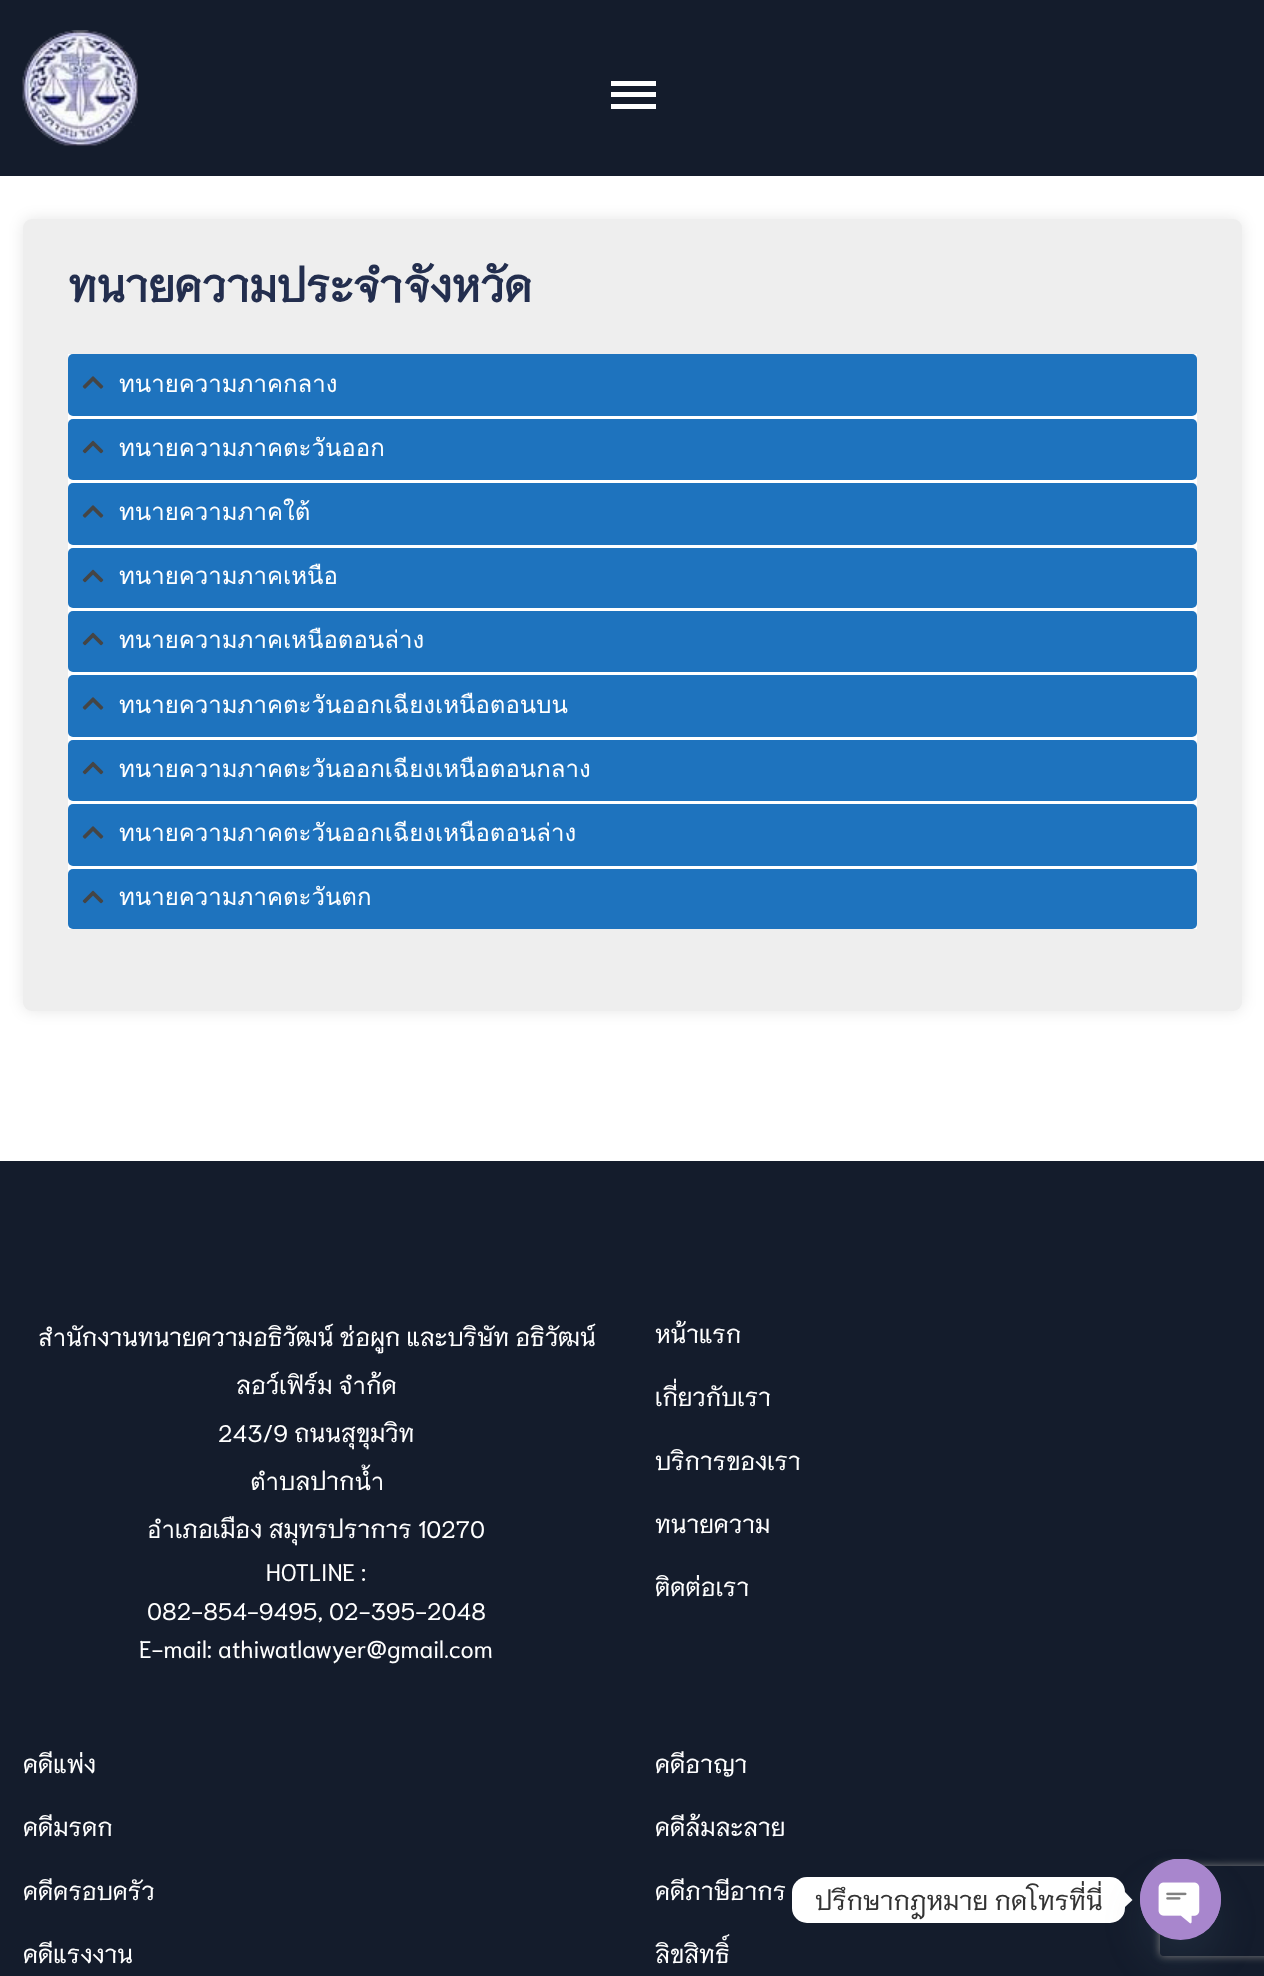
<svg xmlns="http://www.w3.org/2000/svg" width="1264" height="1976">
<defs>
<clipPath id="clip1"><path d="M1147 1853h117v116h-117zm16 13h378c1.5 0 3 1.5 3 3v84c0 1.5-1.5 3-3 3h-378c-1.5 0-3-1.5-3-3v-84c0-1.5 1.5-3 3-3z" clip-rule="evenodd"/></clipPath>
</defs>
<rect width="100%" height="100%" fill="#fff"/>
<rect width="1264" height="176" fill="#141c2c"/>
<image x="22" y="30" width="116" height="116" href="media/1.png"/>
<rect x="611" y="81" width="45" height="5" fill="#fff"/>
<rect x="611" y="92" width="45" height="5" fill="#fff"/>
<rect x="611" y="104" width="45" height="5" fill="#fff"/>
<rect x="23" y="219" width="1219" height="792" rx="9" fill="#0000001a" filter="blur(7.5px)"/>
<rect x="23" y="219" width="1219" height="792" rx="9" fill="#eee"/>
<text x="68" y="302" style="font-family:Niramit;font-size:43.5px;font-weight:bold;fill:#232e4e">ทนายความประจำจังหวัด</text>
<rect x="68" y="354" width="1129" height="575" fill="#fff"/>
<rect x="68" y="354" width="1129" height="62" rx="5" fill="#1e73be"/>
<image x="82" y="376" width="22" height="13" href="media/2.png"/>
<text x="119" y="392" style="font-family:Loma;font-size:24px;fill:#fff">ทนายความภาคกลาง</text>
<rect x="68" y="419" width="1129" height="61" rx="5" fill="#1e73be"/>
<image x="82" y="440" width="22" height="14" href="media/3.png"/>
<text x="119" y="456" style="font-family:Loma;font-size:24px;fill:#fff">ทนายความภาคตะวันออก</text>
<rect x="68" y="483" width="1129" height="62" rx="5" fill="#1e73be"/>
<image x="82" y="505" width="22" height="13" href="media/2.png"/>
<text x="119" y="520" style="font-family:Loma;font-size:24px;fill:#fff">ทนายความภาคใต้</text>
<rect x="68" y="548" width="1129" height="60" rx="5" fill="#1e73be"/>
<image x="82" y="569" width="22" height="14" href="media/3.png"/>
<text x="119" y="584" style="font-family:Loma;font-size:24px;fill:#fff">ทนายความภาคเหนือ</text>
<rect x="68" y="611" width="1129" height="61" rx="5" fill="#1e73be"/>
<image x="82" y="632" width="22" height="14" href="media/3.png"/>
<text x="119" y="648" style="font-family:Loma;font-size:24px;fill:#fff">ทนายความภาคเหนือตอนล่าง</text>
<rect x="68" y="675" width="1129" height="62" rx="5" fill="#1e73be"/>
<image x="82" y="697" width="22" height="13" href="media/2.png"/>
<text x="119" y="713" style="font-family:Loma;font-size:24px;fill:#fff">ทนายความภาคตะวันออกเฉียงเหนือตอนบน</text>
<rect x="68" y="740" width="1129" height="61" rx="5" fill="#1e73be"/>
<image x="82" y="761" width="22" height="14" href="media/3.png"/>
<text x="119" y="777" style="font-family:Loma;font-size:24px;fill:#fff">ทนายความภาคตะวันออกเฉียงเหนือตอนกลาง</text>
<rect x="68" y="804" width="1129" height="62" rx="5" fill="#1e73be"/>
<image x="82" y="826" width="22" height="13" href="media/2.png"/>
<text x="119" y="841" style="font-family:Loma;font-size:24px;fill:#fff">ทนายความภาคตะวันออกเฉียงเหนือตอนล่าง</text>
<rect x="68" y="869" width="1129" height="60" rx="5" fill="#1e73be"/>
<image x="82" y="890" width="22" height="14" href="media/3.png"/>
<text x="119" y="905" style="font-family:Loma;font-size:24px;fill:#fff">ทนายความภาคตะวันตก</text>
<rect y="1161" width="1264" height="815" fill="#141c2c"/>
<text x="38" y="1346" style="font-family:Niramit;font-size:24px;fill:#fff">สำนักงานทนายความอธิวัฒน์ ช่อผูก และบริษัท อธิวัฒน์</text>
<text x="236" y="1394" style="font-family:Niramit;font-size:24px;fill:#fff">ลอว์เฟิร์ม จำก้ด</text>
<text x="218" y="1442" style="font-family:Niramit;font-size:24px;fill:#fff">243/9 ถนนสุขุมวิท</text>
<text x="250" y="1490" style="font-family:Niramit;font-size:24px;fill:#fff">ตำบลปากน้ำ</text>
<text x="147" y="1538" style="font-family:Niramit;font-size:24px;fill:#fff">อำเภอเมือง สมุทรปราการ 10270</text>
<text x="266" y="1581" style="font-family:Niramit;font-size:24px;fill:#fff">HOTLINE :</text>
<text x="147" y="1620" style="font-family:Niramit;font-size:24px;fill:#fff">082-854-9495, 02-395-2048</text>
<text x="139" y="1658" style="font-family:Niramit;font-size:24px;fill:#fff">E-mail: athiwatlawyer@gmail.com</text>
<text x="655" y="1343" style="font-family:Niramit;font-size:24px;fill:#fff">หน้าแรก</text>
<text x="655" y="1406" style="font-family:Niramit;font-size:24px;fill:#fff">เกี่ยวกับเรา</text>
<text x="655" y="1470" style="font-family:Niramit;font-size:24px;fill:#fff">บริการของเรา</text>
<text x="655" y="1533" style="font-family:Niramit;font-size:24px;fill:#fff">ทนายความ</text>
<text x="655" y="1596" style="font-family:Niramit;font-size:24px;fill:#fff">ติดต่อเรา</text>
<text x="23" y="1773" style="font-family:Niramit;font-size:24px;fill:#fff">คดีแพ่ง</text>
<text x="23" y="1836" style="font-family:Niramit;font-size:24px;fill:#fff">คดีมรดก</text>
<text x="23" y="1900" style="font-family:Niramit;font-size:24px;fill:#fff">คดีครอบครัว</text>
<text x="23" y="1963" style="font-family:Niramit;font-size:24px;fill:#fff">คดีแรงงาน</text>
<text x="655" y="1773" style="font-family:Niramit;font-size:24px;fill:#fff">คดีอาญา</text>
<text x="655" y="1836" style="font-family:Niramit;font-size:24px;fill:#fff">คดีล้มละลาย</text>
<text x="655" y="1900" style="font-family:Niramit;font-size:24px;fill:#fff">คดีภาษีอากร</text>
<text x="655" y="1963" style="font-family:Niramit;font-size:24px;fill:#fff">ลิขสิทธิ์</text>
<rect x="792" y="1877" width="333" height="46" rx="15" fill="#fff"/>
<text x="815" y="1910" style="font-family:Niramit;font-size:25.5px;fill:#333">ปรึกษากฎหมาย กดโทรที่นี่</text>
<path d="M1125 1907v-15l7.5 8z" fill="#fff"/>
<rect x="1140" y="1883" width="81" height="81" rx="40.5" fill="#49687e29" filter="blur(18px)"/>
<g clip-path="url(#clip1)">
<rect x="1160" y="1866" width="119" height="90" rx="3" fill="#808080" filter="blur(4px)"/>
</g>
<circle cx="1180.5" cy="1899.5" r="40.5" fill="#a886cd"/>
<image x="1140" y="1859" width="81" height="76" href="media/4.png"/>
</svg>
